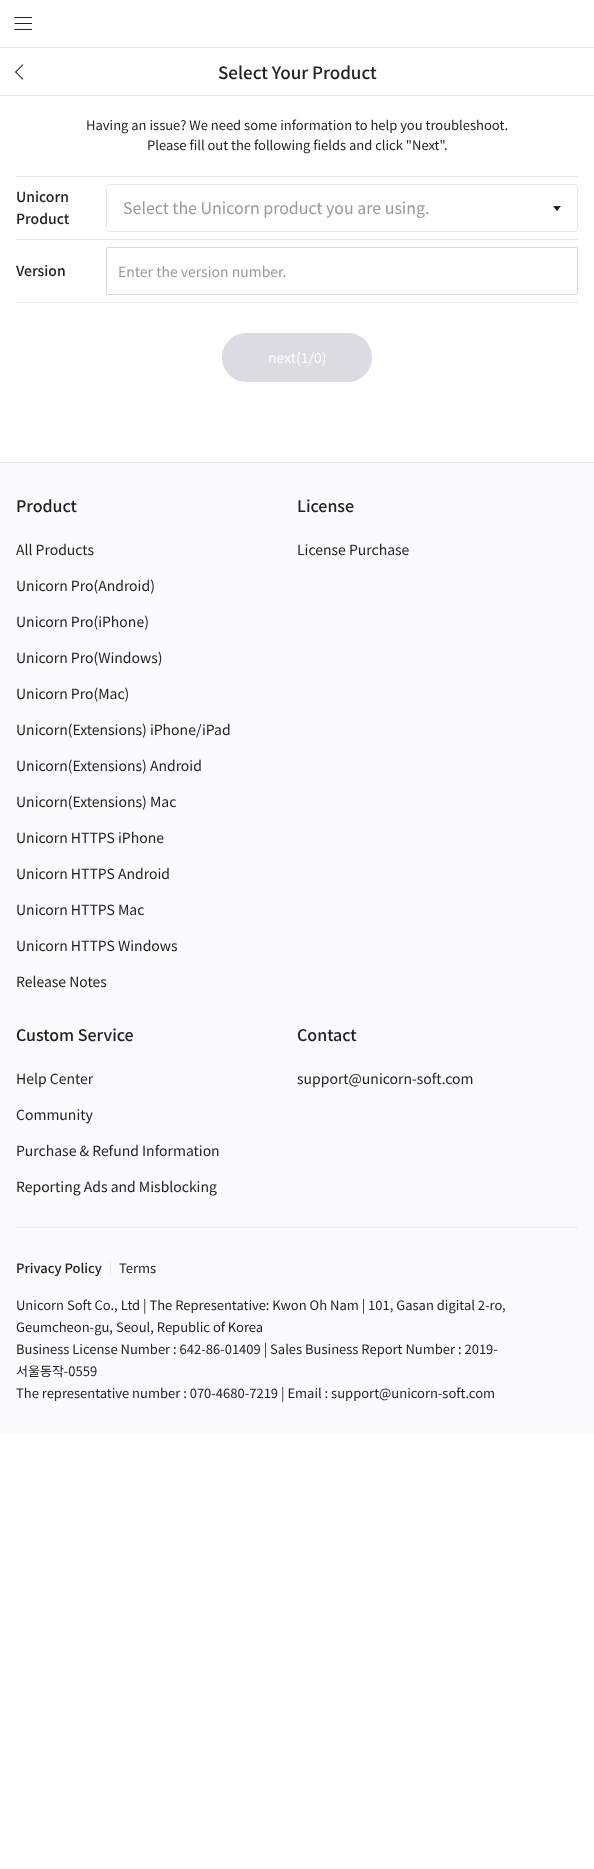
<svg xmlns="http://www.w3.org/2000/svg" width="594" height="1869">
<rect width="100%" height="100%" fill="#fff"/>
<rect y="47" width="594" height="1" fill="#e9e9e9"/>
<image x="14" y="17" width="18" height="13" href="media/1.png"/>
<rect y="95" width="594" height="1" fill="#e9e9e9"/>
<image x="15" y="64" width="9" height="16" href="media/2.png"/>
<text x="218" y="79" style="font-family:Noto Sans KR;font-size:17px;font-weight:500;fill:#222">Select Your Product</text>
<text x="86" y="130" style="font-family:Noto Sans KR;font-size:13px;fill:#222">Having an issue? We need some information to help you troubleshoot.</text>
<text x="147" y="150" style="font-family:Noto Sans KR;font-size:13px;fill:#222">Please fill out the following fields and click "Next".</text>
<rect x="16" y="176" width="562" height="1" fill="#e9e9e9"/>
<rect x="16" y="239" width="562" height="1" fill="#e9e9e9"/>
<text x="16" y="202" style="font-family:Noto Sans KR;font-size:14px;font-weight:500;fill:#222">Unicorn</text>
<text x="16" y="224" style="font-family:Noto Sans KR;font-size:14px;font-weight:500;fill:#222">Product</text>
<rect x="106.5" y="184.5" width="471" height="47" rx="3.5" fill="none" stroke="#e9e9e9"/>
<text x="123" y="214" style="font-family:Noto Sans KR;font-size:16px;fill:#999">Select the Unicorn product you are using.</text>
<image x="553" y="206" width="8" height="5" href="media/3.png"/>
<rect x="16" y="302" width="562" height="1" fill="#e9e9e9"/>
<text x="16" y="276" style="font-family:Noto Sans KR;font-size:14px;font-weight:500;fill:#222">Version</text>
<rect x="106.5" y="247.5" width="471" height="47" rx="1.5" fill="none" stroke="#d9d9d9"/>
<text x="118" y="277" style="font-family:Noto Sans KR;font-size:14px;fill:#999">Enter the version number.</text>
<rect x="222.5" y="333.5" width="149" height="48" rx="23.5" fill="#d9dce2" stroke="#d9dce2"/>
<text x="268" y="363" style="font-family:Noto Sans KR;font-size:14px;fill:#fff">next(1/0)</text>
<rect y="462" width="594" height="1" fill="#e9e9e9"/>
<rect y="463" width="594" height="971" fill="#fafbfc"/>
<text x="16" y="512" style="font-family:Noto Sans KR;font-size:16px;font-weight:500;fill:#222">Product</text>
<text x="16" y="555" style="font-family:Noto Sans KR;font-size:14px;fill:#222">All Products</text>
<text x="16" y="591" style="font-family:Noto Sans KR;font-size:14px;fill:#222">Unicorn Pro(Android)</text>
<text x="16" y="627" style="font-family:Noto Sans KR;font-size:14px;fill:#222">Unicorn Pro(iPhone)</text>
<text x="16" y="663" style="font-family:Noto Sans KR;font-size:14px;fill:#222">Unicorn Pro(Windows)</text>
<text x="16" y="699" style="font-family:Noto Sans KR;font-size:14px;fill:#222">Unicorn Pro(Mac)</text>
<text x="16" y="735" style="font-family:Noto Sans KR;font-size:14px;fill:#222">Unicorn(Extensions) iPhone/</text>
<text x="202" y="735" style="font-family:Noto Sans KR;font-size:14px;fill:#222">iPad</text>
<text x="16" y="771" style="font-family:Noto Sans KR;font-size:14px;fill:#222">Unicorn(Extensions) Android</text>
<text x="16" y="807" style="font-family:Noto Sans KR;font-size:14px;fill:#222">Unicorn(Extensions) Mac</text>
<text x="16" y="843" style="font-family:Noto Sans KR;font-size:14px;fill:#222">Unicorn HTTPS iPhone</text>
<text x="16" y="879" style="font-family:Noto Sans KR;font-size:14px;fill:#222">Unicorn HTTPS Android</text>
<text x="16" y="915" style="font-family:Noto Sans KR;font-size:14px;fill:#222">Unicorn HTTPS Mac</text>
<text x="16" y="951" style="font-family:Noto Sans KR;font-size:14px;fill:#222">Unicorn HTTPS Windows</text>
<text x="16" y="987" style="font-family:Noto Sans KR;font-size:14px;fill:#222">Release Notes</text>
<text x="297" y="512" style="font-family:Noto Sans KR;font-size:16px;font-weight:500;fill:#222">License</text>
<text x="297" y="555" style="font-family:Noto Sans KR;font-size:14px;fill:#222">License Purchase</text>
<text x="16" y="1041" style="font-family:Noto Sans KR;font-size:16px;font-weight:500;fill:#222">Custom Service</text>
<text x="16" y="1084" style="font-family:Noto Sans KR;font-size:14px;fill:#222">Help Center</text>
<text x="16" y="1120" style="font-family:Noto Sans KR;font-size:14px;fill:#222">Community</text>
<text x="16" y="1156" style="font-family:Noto Sans KR;font-size:14px;fill:#222">Purchase &amp; Refund Information</text>
<text x="16" y="1192" style="font-family:Noto Sans KR;font-size:14px;fill:#222">Reporting Ads and Misblocking</text>
<text x="297" y="1041" style="font-family:Noto Sans KR;font-size:16px;font-weight:500;fill:#222">Contact</text>
<text x="297" y="1084" style="font-family:Noto Sans KR;font-size:14px;fill:#222">support@unicorn-soft.com</text>
<rect x="16" y="1227" width="562" height="1" fill="#ebeced"/>
<text x="16" y="1273" style="font-family:Noto Sans KR;font-size:13px;font-weight:500;fill:#222">Privacy Policy</text>
<rect x="110" y="1262" width="1" height="13" fill="#ebeced"/>
<text x="119" y="1273" style="font-family:Noto Sans KR;font-size:13px;fill:#222">Terms</text>
<text x="16" y="1310" style="font-family:Noto Sans KR;font-size:13px;fill:#222">Unicorn Soft Co., Ltd | The Representative: Kwon Oh Nam | 101, Gasan digital 2-ro,</text>
<text x="16" y="1332" style="font-family:Noto Sans KR;font-size:13px;fill:#222">Geumcheon-gu, Seoul, Republic of Korea</text>
<text x="16" y="1354" style="font-family:Noto Sans KR;font-size:13px;fill:#222">Business License Number : 642-86-01409 | Sales Business Report Number : 2019-</text>
<text x="16" y="1376" style="font-family:Noto Sans KR;font-size:13px;fill:#222">서울동작-0559</text>
<text x="16" y="1398" style="font-family:Noto Sans KR;font-size:13px;fill:#222">The representative number : 070-4680-7219 | Email : support@unicorn-soft.com</text>
</svg>
